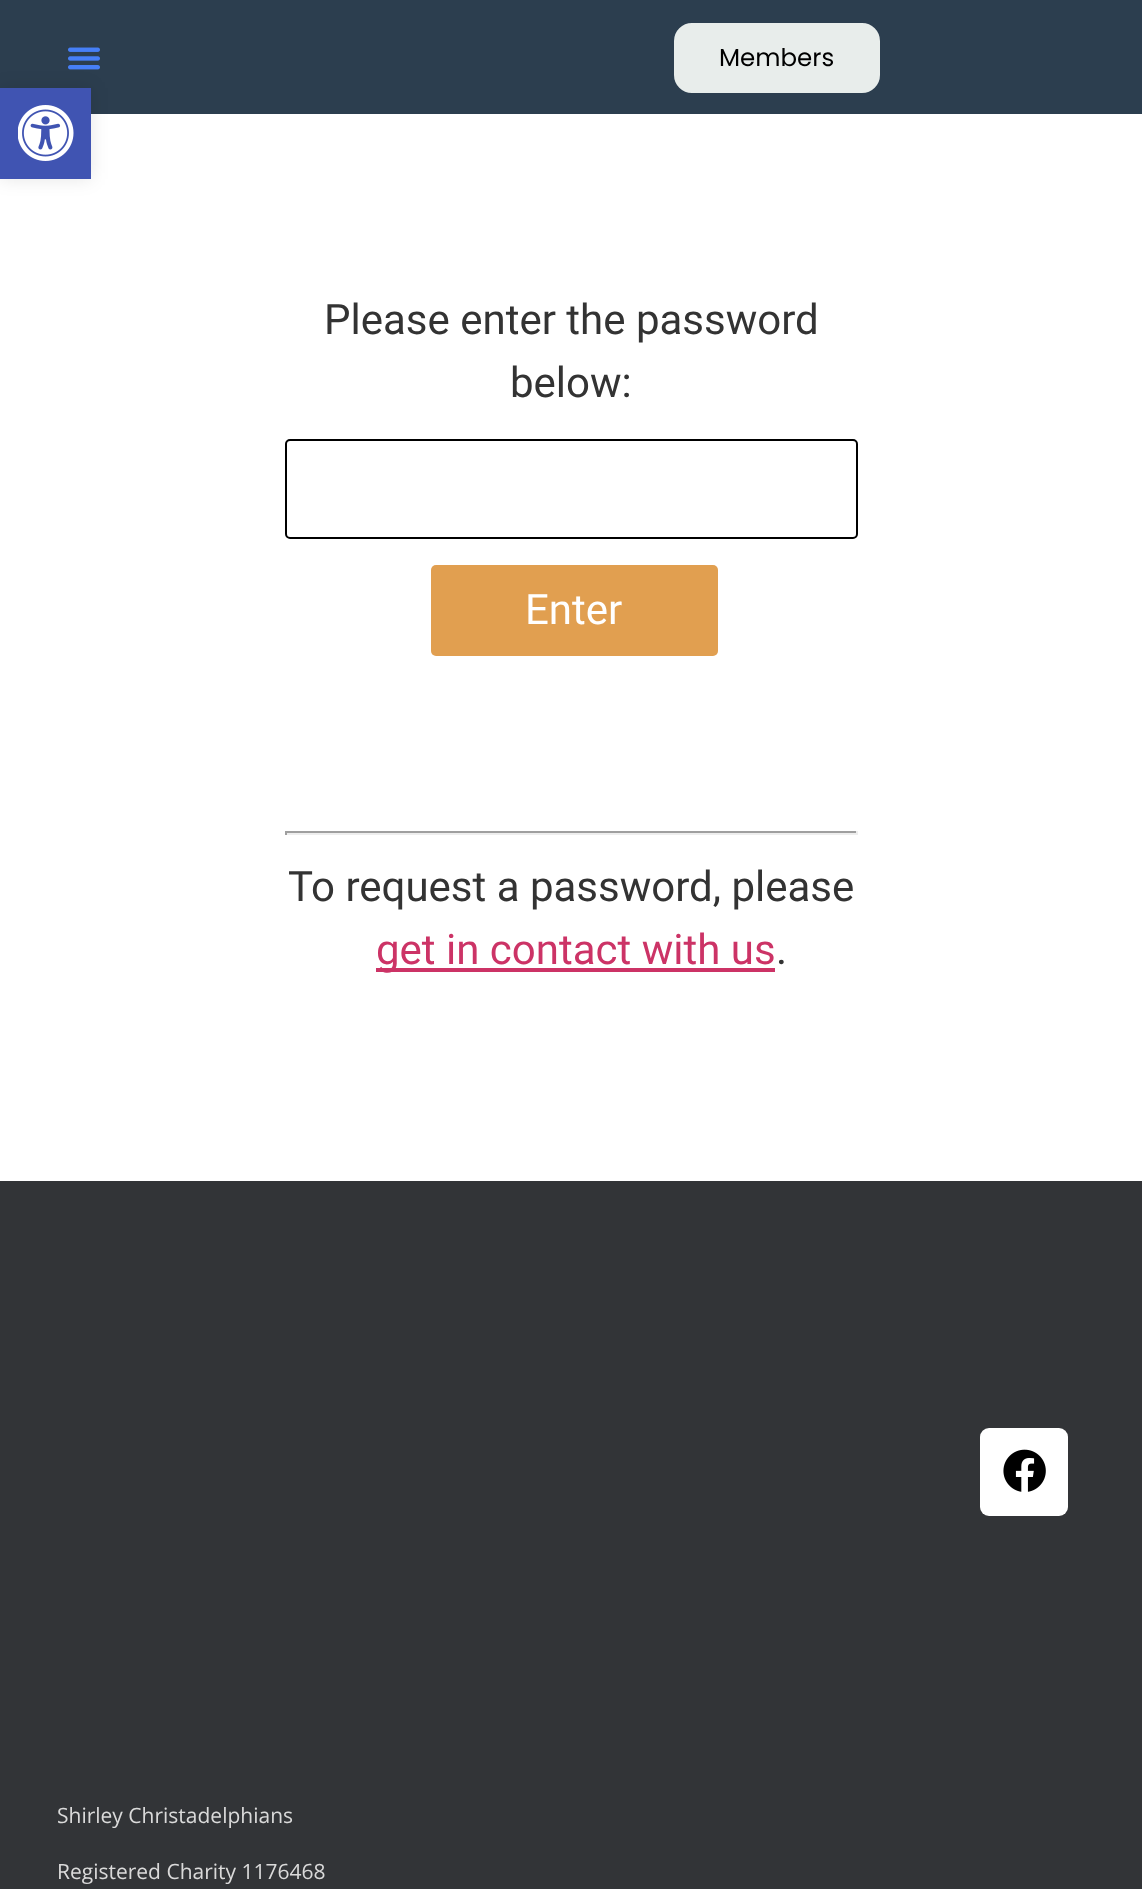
<svg xmlns="http://www.w3.org/2000/svg" width="1142" height="1889">
<rect width="100%" height="100%" fill="#fff"/>
<rect width="1142" height="114" fill="#2c3e4f"/>
<image x="68" y="47" width="32" height="23" href="media/1.png"/>
<rect x="675" y="24" width="204" height="68" rx="17" fill="#e8edeb" stroke="#e8edeb" stroke-width="2"/>
<text x="719" y="66" style="font-family:Poppins;font-size:24.5px;fill:#000">Members</text>
<rect y="88" width="91" height="91" fill="#0000001a" filter="blur(9px)"/>
<rect y="88" width="91" height="91" fill="#4054b2"/>
<image x="18" y="105" width="56" height="56" href="media/2.png"/>
<text x="324" y="334" style="font-family:Roboto;font-size:42px;fill:#333">Please enter the password</text>
<text x="510" y="397" style="font-family:Roboto;font-size:42px;fill:#333">below:</text>
<rect x="286" y="440" width="571" height="98" rx="4" fill="none" stroke="#000" stroke-width="2"/>
<rect x="431" y="565" width="287" height="91" rx="5" fill="#e19f50"/>
<text x="525" y="624" style="font-family:Roboto;font-size:42px;fill:#fff">Enter</text>
<rect x="285" y="831" width="573" height="2" fill="#9f9f9f"/>
<rect x="856" y="831" width="2" height="4" fill="#eee"/>
<rect x="285" y="833" width="573" height="2" fill="#eee"/>
<rect x="285" y="831" width="2" height="4" fill="#9f9f9f"/>
<text x="288" y="901" style="font-family:Roboto;font-size:42px;fill:#333">To request a password, please</text>
<rect x="376" y="968" width="399" height="4" fill="#c36"/>
<text x="376" y="964" style="font-family:Roboto;font-size:42px;fill:#c36">get in contact with us</text>
<text x="776" y="964" style="font-family:Roboto;font-size:42px;fill:#333">.</text>
<rect y="1181" width="1142" height="708" fill="#323437"/>
<rect x="980" y="1428" width="88" height="88" rx="9" fill="#fff"/>
<image x="1003" y="1449" width="43" height="43" href="media/3.png"/>
<text x="57" y="1823" style="font-family:Open Sans;font-size:21px;fill:#dadada">Shirley Christadelphians</text>
<text x="57" y="1879" style="font-family:Open Sans;font-size:21px;fill:#dadada">Registered Charity 1176468</text>
</svg>
